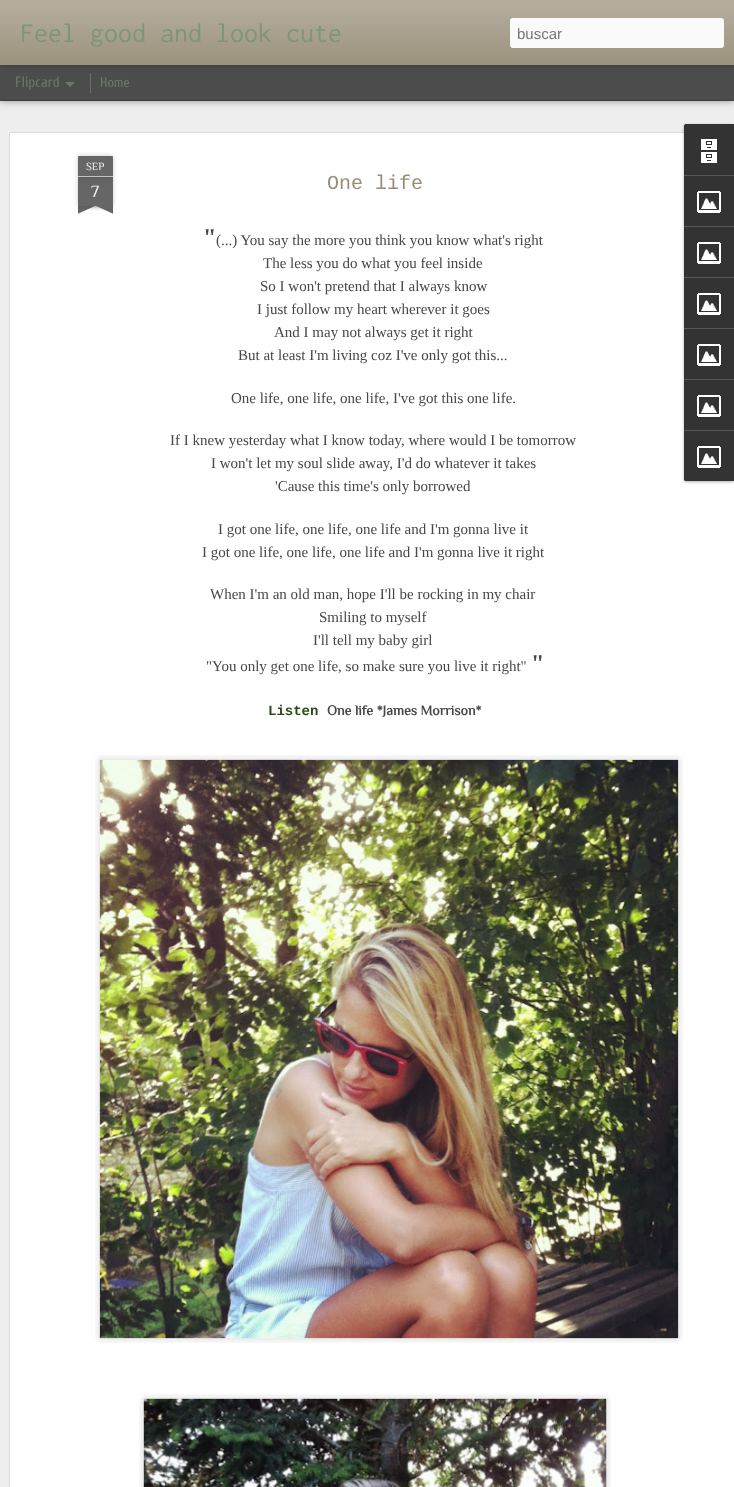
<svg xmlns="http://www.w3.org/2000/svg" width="734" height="1487">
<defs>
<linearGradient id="g1" gradientUnits="userSpaceOnUse" x1="0" y1="0" x2="0" y2="65"><stop offset="0" stop-color="#b6af9f"/><stop offset="1" stop-color="#9b937d"/></linearGradient>
<clipPath id="clip1"><rect x="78" y="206" width="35" height="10"/></clipPath>
<clipPath id="clip2"><rect x="78" y="206" width="35" height="10"/></clipPath>
</defs>
<rect width="100%" height="100%" fill="#4c4c4c"/>
<rect y="101" width="734" height="1386" fill="#eee"/>
<rect y="65" width="734" height="35" fill="#00000080" filter="blur(4px)"/>
<rect y="65" width="734" height="35" fill="#4c4c4c"/>
<rect x="90" y="73" width="1" height="20" fill="#667161"/>
<rect width="734" height="65" fill="#0000004d" filter="blur(2.5px)"/>
<rect width="734" height="65" fill="url(#g1)"/>
<text x="20" y="42" style="font-family:Inconsolata;font-size:28px;fill:#7f9676">Feel good and look cute</text>
<rect x="510" y="18" width="214" height="30" rx="3" fill="#fafafa"/>
<text x="517" y="39" style="font-family:Liberation Sans;font-size:15px;fill:#757575">buscar</text>
<text x="15" y="87" style="font-family:Cuprum;font-size:15px;fill:#6b7865">Flipcard</text>
<path d="M65 82h10l-5 5z" fill="#6b7865"/>
<text x="100" y="87" style="font-family:Cuprum;font-size:14px;fill:#6b7865">Home</text>
<rect x="8" y="131" width="726" height="1356" fill="#fff"/>
<image x="8" y="131" width="676" height="1356" href="media/1.png"/>
<rect x="78" y="177" width="35" height="29" fill="#00000033" filter="blur(2.5px)"/>
<rect x="78" y="177" width="35" height="29" fill="#666"/>
<rect x="78" y="156" width="35" height="21" rx="1" fill="#00000033" filter="blur(2.5px)"/>
<path d="M79 156h33c.5 0 1 .5 1 1v20h-35v-20c0-.5 .5-1 1-1z" fill="#666"/>
<rect x="78" y="176" width="35" height="1" fill="#c2c2c2"/>
<text x="86" y="170" style="font-family:Philosopher;font-size:11px;fill:#eee">SEP</text>
<text x="91" y="197" style="font-family:Philosopher;font-size:17px;fill:#eee">7</text>
<g clip-path="url(#clip1)">
<rect x="69" y="196" width="50" height="10" fill="#00000033" filter="blur(2.5px)"/>
</g>
<g clip-path="url(#clip2)">
<path d="M69 207l46-21l4 9l-46 21z" fill="#666"/>
</g>
<g clip-path="url(#clip1)">
<rect x="72" y="196" width="50" height="10" fill="#00000033" filter="blur(2.5px)"/>
</g>
<g clip-path="url(#clip2)">
<path d="M76 186l46 21l-4 9l-46-21z" fill="#666"/>
</g>
<text x="327" y="189" style="font-family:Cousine;font-size:20px;fill:#968d76">One life</text>
<text x="203" y="245" style="font-family:Liberation Serif;font-size:24px;font-weight:bold;fill:#474747">"</text>
<text x="216" y="245" style="font-family:Liberation Serif;font-size:15px;fill:#474747">(...) You say the more you think you know what's right</text>
<text x="263" y="268" style="font-family:Liberation Serif;font-size:15px;fill:#474747">The less you do what you feel inside</text>
<text x="260" y="291" style="font-family:Liberation Serif;font-size:15px;fill:#474747">So I won't pretend that I always know</text>
<text x="257" y="314" style="font-family:Liberation Serif;font-size:15px;fill:#474747">I just follow my heart wherever it goes</text>
<text x="274" y="337" style="font-family:Liberation Serif;font-size:15px;fill:#474747">And I may not always get it right</text>
<text x="238" y="360" style="font-family:Liberation Serif;font-size:15px;fill:#474747">But at least I'm living coz I've only got this...</text>
<text x="231" y="403" style="font-family:Liberation Serif;font-size:15px;fill:#474747">One life, one life, one life, I've got this one life.</text>
<text x="170" y="445" style="font-family:Liberation Serif;font-size:15px;fill:#474747">If I knew yesterday what I know today, where would I be tomorrow</text>
<text x="211" y="468" style="font-family:Liberation Serif;font-size:15px;fill:#474747">I won't let my soul slide away, I'd do whatever it takes</text>
<text x="275" y="491" style="font-family:Liberation Serif;font-size:15px;fill:#474747">'Cause this time's only borrowed</text>
<text x="218" y="534" style="font-family:Liberation Serif;font-size:15px;fill:#474747">I got one life, one life, one life and I'm gonna live it</text>
<text x="202" y="557" style="font-family:Liberation Serif;font-size:15px;fill:#474747">I got one life, one life, one life and I'm gonna live it right</text>
<text x="210" y="599" style="font-family:Liberation Serif;font-size:15px;fill:#474747">When I'm an old man, hope I'll be rocking in my chair</text>
<text x="319" y="622" style="font-family:Liberation Serif;font-size:15px;fill:#474747">Smiling to myself</text>
<text x="313" y="645" style="font-family:Liberation Serif;font-size:15px;fill:#474747">I'll tell my baby girl</text>
<text x="531" y="671" style="font-family:Liberation Serif;font-size:24px;font-weight:bold;fill:#474747">"</text>
<text x="206" y="671" style="font-family:Liberation Serif;font-size:15px;fill:#474747">"You only get one life, so make sure you live it right"</text>
<text x="268" y="715" style="font-family:Liberation Mono;font-size:14px;font-weight:bold;fill:#274e13">Listen</text>
<text x="327" y="715" style="font-family:Philosopher;font-size:14px;font-weight:bold;fill:#474747">One life *James Morrison*</text>
<image x="95" y="755" width="588" height="588" href="media/2.png"/>
<image x="99" y="759" width="580" height="580" href="media/3.png"/>
<image x="139" y="1394" width="472" height="93" href="media/4.png"/>
<image x="143" y="1398" width="464" height="89" href="media/5.png"/>
<rect x="684" y="125" width="50" height="357" rx="2" fill="#0000004d" filter="blur(1.5px)"/>
<path d="M686 124h48v357h-48c-1 0-2-1-2-2v-353c0-1 1-2 2-2z" fill="#333"/>
<path d="M686 124h48v51h-50v-49c0-1 1-2 2-2z" fill="#333"/>
<image x="701" y="139" width="16" height="24" href="media/6.png"/>
<rect x="684" y="175" width="50" height="1" fill="#585858"/>
<image x="697" y="191" width="24" height="22" href="media/7.png"/>
<rect x="684" y="226" width="50" height="1" fill="#585858"/>
<image x="697" y="242" width="24" height="22" href="media/7.png"/>
<rect x="684" y="277" width="50" height="1" fill="#585858"/>
<image x="697" y="293" width="24" height="22" href="media/7.png"/>
<rect x="684" y="328" width="50" height="1" fill="#585858"/>
<image x="697" y="344" width="24" height="22" href="media/7.png"/>
<rect x="684" y="379" width="50" height="1" fill="#585858"/>
<image x="697" y="395" width="24" height="22" href="media/7.png"/>
<path d="M684 430h50v51h-48c-1 0-2-1-2-2z" fill="#333"/>
<rect x="684" y="430" width="50" height="1" fill="#585858"/>
<image x="697" y="446" width="24" height="22" href="media/7.png"/>
</svg>
